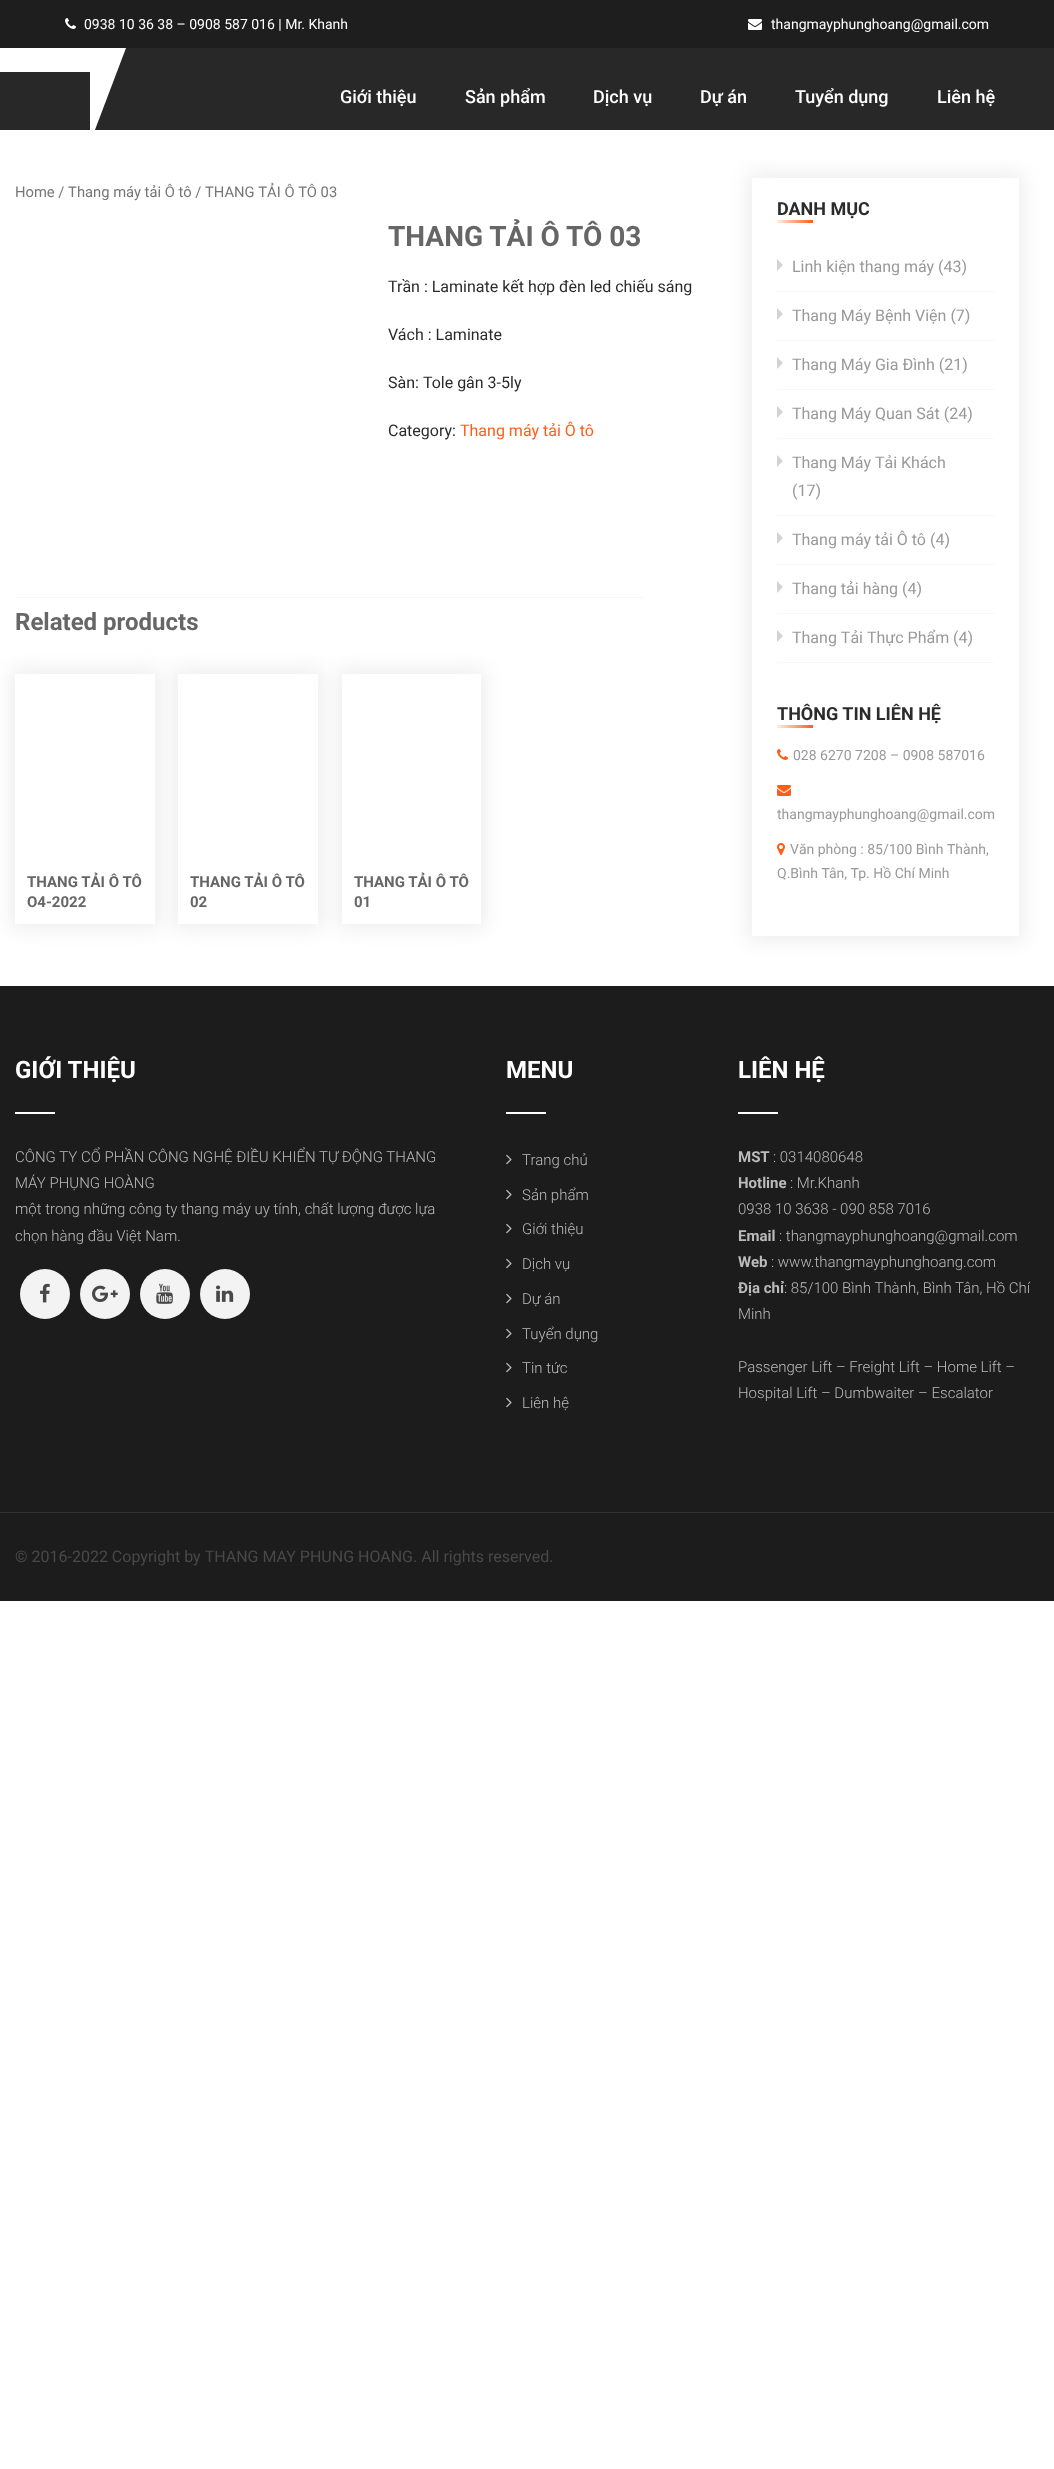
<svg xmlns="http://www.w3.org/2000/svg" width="1054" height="2469">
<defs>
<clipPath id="clip1"><path d="M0 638h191v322h-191zm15 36h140v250h-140z" clip-rule="evenodd"/></clipPath>
<clipPath id="clip2"><path d="M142 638h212v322h-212zm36 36h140v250h-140z" clip-rule="evenodd"/></clipPath>
<clipPath id="clip3"><path d="M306 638h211v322h-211zm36 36h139v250h-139z" clip-rule="evenodd"/></clipPath>
<clipPath id="clip4"><rect x="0" y="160" width="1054" height="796"/></clipPath>
<clipPath id="clip5"><path d="M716 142h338v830h-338zm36 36h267v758h-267z" clip-rule="evenodd"/></clipPath>
<linearGradient id="g1" gradientUnits="userSpaceOnUse" x1="813" y1="222" x2="777" y2="222"><stop offset="0" stop-color="#ff5e14"/><stop offset="1" stop-color="#ffede5"/></linearGradient>
<linearGradient id="g2" gradientUnits="userSpaceOnUse" x1="813" y1="727" x2="777" y2="727"><stop offset="0" stop-color="#ff5e14"/><stop offset="1" stop-color="#ffede5"/></linearGradient>
</defs>
<rect width="100%" height="100%" fill="#fff"/>
<rect width="1054" height="48" fill="#1e1e1e"/>
<image x="65" y="18" width="11" height="11" href="media/1.png"/>
<text x="84" y="29" style="font-family:Roboto;font-size:14px;fill:#fff">0938 10 36 38 – 0908 587 016 | Mr. Khanh</text>
<image x="748" y="19" width="14" height="11" href="media/2.png"/>
<text x="771" y="29" style="font-family:Roboto;font-size:14px;fill:#fff">thangmayphunghoang@gmail.com</text>
<rect y="48" width="1054" height="82" fill="#282828"/>
<rect y="48" width="90" height="24" fill="#fff"/>
<path d="M90 143v-95h36z" fill="#fff"/>
<text x="340" y="103" style="font-family:Roboto;font-size:18px;font-weight:500;fill:#fff">Giới thiệu</text>
<text x="465" y="103" style="font-family:Roboto;font-size:18px;font-weight:500;fill:#fff">Sản phẩm</text>
<text x="593" y="103" style="font-family:Roboto;font-size:18px;font-weight:500;fill:#fff">Dịch vụ</text>
<text x="700" y="103" style="font-family:Roboto;font-size:18px;font-weight:500;fill:#fff">Dự án</text>
<text x="795" y="103" style="font-family:Roboto;font-size:18px;font-weight:500;fill:#fff">Tuyển dụng</text>
<text x="937" y="103" style="font-family:Roboto;font-size:18px;font-weight:500;fill:#fff">Liên hệ</text>
<text x="15" y="197" style="font-family:Roboto;font-size:14.75px;fill:#767676">Home / Thang máy tải Ô tô / THANG TẢI Ô TÔ 03</text>
<text x="388" y="246" style="font-family:Roboto;font-size:28px;font-weight:bold;fill:#666">THANG TẢI Ô TÔ 03</text>
<text x="388" y="292" style="font-family:Roboto;font-size:16px;fill:#2b2b2b">Trần : Laminate kết hợp đèn led chiếu sáng</text>
<text x="388" y="340" style="font-family:Roboto;font-size:16px;fill:#2b2b2b">Vách : Laminate</text>
<text x="388" y="388" style="font-family:Roboto;font-size:16px;fill:#2b2b2b">Sàn: Tole gân 3-5ly</text>
<text x="388" y="436" style="font-family:Roboto;font-size:16px;fill:#2b2b2b">Category:</text>
<text x="460" y="436" style="font-family:Roboto;font-size:16px;fill:#ff5e14">Thang máy tải Ô tô</text>
<rect x="15" y="597" width="630" height="1" fill="#f7f7f7"/>
<text x="15" y="630" style="font-family:Roboto;font-size:24px;font-weight:bold;fill:#666">Related products</text>
<g clip-path="url(#clip1)">
<rect x="10" y="669" width="150" height="260" fill="#eee" filter="blur(10px)"/>
</g>
<text x="27" y="887" style="font-family:Roboto;font-size:15px;font-weight:bold;fill:#666">THANG TẢI Ô TÔ</text>
<text x="27" y="907" style="font-family:Roboto;font-size:15px;font-weight:bold;fill:#666">O4-2022</text>
<g clip-path="url(#clip2)">
<rect x="173" y="669" width="150" height="260" fill="#eee" filter="blur(10px)"/>
</g>
<text x="190" y="887" style="font-family:Roboto;font-size:15px;font-weight:bold;fill:#666">THANG TẢI Ô TÔ</text>
<text x="190" y="907" style="font-family:Roboto;font-size:15px;font-weight:bold;fill:#666">02</text>
<g clip-path="url(#clip3)">
<rect x="337" y="669" width="149" height="260" fill="#eee" filter="blur(10px)"/>
</g>
<text x="354" y="887" style="font-family:Roboto;font-size:15px;font-weight:bold;fill:#666">THANG TẢI Ô TÔ</text>
<text x="354" y="907" style="font-family:Roboto;font-size:15px;font-weight:bold;fill:#666">01</text>
<g clip-path="url(#clip4)">
<g clip-path="url(#clip5)">
<rect x="747" y="173" width="277" height="768" fill="#eee" filter="blur(10px)"/>
</g>
</g>
<text x="777" y="215" style="font-family:Roboto;font-size:18px;font-weight:bold;fill:#2b2b2b">DANH MỤC</text>
<rect x="777" y="220" width="36" height="3" fill="url(#g1)"/>
<rect x="777" y="291" width="217" height="1" fill="#f7f7f7"/>
<path d="M777 271v-12l6 6z" fill="#d3d3d3"/>
<text x="792" y="272" style="font-family:Roboto;font-size:16px;fill:#999">Linh kiện thang máy (43)</text>
<rect x="777" y="340" width="217" height="1" fill="#f7f7f7"/>
<path d="M777 320v-12l6 6z" fill="#d3d3d3"/>
<text x="792" y="321" style="font-family:Roboto;font-size:16px;fill:#999">Thang Máy Bệnh Viện (7)</text>
<rect x="777" y="389" width="217" height="1" fill="#f7f7f7"/>
<path d="M777 369v-12l6 6z" fill="#d3d3d3"/>
<text x="792" y="370" style="font-family:Roboto;font-size:16px;fill:#999">Thang Máy Gia Đình (21)</text>
<rect x="777" y="438" width="217" height="1" fill="#f7f7f7"/>
<path d="M777 418v-12l6 6z" fill="#d3d3d3"/>
<text x="792" y="419" style="font-family:Roboto;font-size:16px;fill:#999">Thang Máy Quan Sát (24)</text>
<rect x="777" y="515" width="217" height="1" fill="#f7f7f7"/>
<path d="M777 467v-12l6 6z" fill="#d3d3d3"/>
<text x="792" y="468" style="font-family:Roboto;font-size:16px;fill:#999">Thang Máy Tải Khách</text>
<text x="792" y="496" style="font-family:Roboto;font-size:16px;fill:#999">(17)</text>
<rect x="777" y="564" width="217" height="1" fill="#f7f7f7"/>
<path d="M777 544v-12l6 6z" fill="#d3d3d3"/>
<text x="792" y="545" style="font-family:Roboto;font-size:16px;fill:#999">Thang máy tải Ô tô (4)</text>
<rect x="777" y="613" width="217" height="1" fill="#f7f7f7"/>
<path d="M777 593v-12l6 6z" fill="#d3d3d3"/>
<text x="792" y="594" style="font-family:Roboto;font-size:16px;fill:#999">Thang tải hàng (4)</text>
<rect x="777" y="662" width="217" height="1" fill="#f7f7f7"/>
<path d="M777 642v-12l6 6z" fill="#d3d3d3"/>
<text x="792" y="643" style="font-family:Roboto;font-size:16px;fill:#999">Thang Tải Thực Phẩm</text>
<text x="953" y="643" style="font-family:Roboto;font-size:16px;fill:#999">(4)</text>
<text x="777" y="720" style="font-family:Roboto;font-size:18px;font-weight:bold;fill:#2b2b2b">THÔNG TIN LIÊN HỆ</text>
<rect x="777" y="725" width="36" height="3" fill="url(#g2)"/>
<image x="777" y="749" width="11" height="11" href="media/3.png"/>
<text x="793" y="760" style="font-family:Roboto;font-size:14px;fill:#999">028 6270 7208 – 0908 587016</text>
<image x="777" y="785" width="14" height="11" href="media/4.png"/>
<text x="777" y="819" style="font-family:Roboto;font-size:14px;fill:#999">thangmayphunghoang@gmail.com</text>
<image x="777" y="843" width="8" height="12" href="media/5.png"/>
<text x="790" y="854" style="font-family:Roboto;font-size:14px;fill:#999">Văn phòng : 85/100 Bình Thành,</text>
<text x="777" y="878" style="font-family:Roboto;font-size:14px;fill:#999">Q.Bình Tân, Tp. Hồ Chí Minh</text>
<rect y="986" width="1054" height="526" fill="#1c1c1c"/>
<text x="15" y="1078" style="font-family:Roboto;font-size:24px;font-weight:bold;fill:#fff">GIỚI THIỆU</text>
<rect x="15" y="1112" width="40" height="2" fill="#fff"/>
<text x="15" y="1162" style="font-family:Roboto;font-size:15px;font-weight:300;fill:#bcbbbb">CÔNG TY CỔ PHẦN CÔNG NGHỆ ĐIỀU KHIỂN TỰ ĐỘNG THANG</text>
<text x="15" y="1188" style="font-family:Roboto;font-size:15px;font-weight:300;fill:#bcbbbb">MÁY PHỤNG HOÀNG</text>
<text x="15" y="1214" style="font-family:Roboto;font-size:15px;font-weight:300;fill:#bcbbbb">một trong những công ty thang máy uy tính, chất lượng được lựa</text>
<text x="15" y="1241" style="font-family:Roboto;font-size:15px;font-weight:300;fill:#bcbbbb">chọn hàng đầu Việt Nam.</text>
<circle cx="45" cy="1294" r="25" fill="#f3f3f3"/>
<image x="40" y="1283" width="10" height="20" href="media/6.png"/>
<circle cx="105" cy="1294" r="25" fill="#f3f3f3"/>
<image x="92" y="1285" width="26" height="17" href="media/7.png"/>
<circle cx="165" cy="1294" r="25" fill="#f3f3f3"/>
<image x="156" y="1283" width="17" height="21" href="media/8.png"/>
<circle cx="225" cy="1294" r="25" fill="#f3f3f3"/>
<image x="216" y="1285" width="18" height="17" href="media/9.png"/>
<text x="506" y="1078" style="font-family:Roboto;font-size:24px;font-weight:bold;fill:#fff">MENU</text>
<rect x="506" y="1112" width="40" height="2" fill="#fff"/>
<image x="506" y="1154" width="6" height="11" href="media/10.png"/>
<text x="522" y="1165" style="font-family:Roboto;font-size:15px;font-weight:300;fill:#bcbbbb">Trang chủ</text>
<image x="506" y="1189" width="6" height="11" href="media/10.png"/>
<text x="522" y="1200" style="font-family:Roboto;font-size:15px;font-weight:300;fill:#bcbbbb">Sản phẩm</text>
<image x="506" y="1223" width="6" height="11" href="media/10.png"/>
<text x="522" y="1234" style="font-family:Roboto;font-size:15px;font-weight:300;fill:#bcbbbb">Giới thiệu</text>
<image x="506" y="1258" width="6" height="11" href="media/10.png"/>
<text x="522" y="1269" style="font-family:Roboto;font-size:15px;font-weight:300;fill:#bcbbbb">Dịch vụ</text>
<image x="506" y="1293" width="6" height="11" href="media/10.png"/>
<text x="522" y="1304" style="font-family:Roboto;font-size:15px;font-weight:300;fill:#bcbbbb">Dự án</text>
<image x="506" y="1328" width="6" height="11" href="media/10.png"/>
<text x="522" y="1339" style="font-family:Roboto;font-size:15px;font-weight:300;fill:#bcbbbb">Tuyển dụng</text>
<image x="506" y="1362" width="6" height="11" href="media/10.png"/>
<text x="522" y="1373" style="font-family:Roboto;font-size:15px;font-weight:300;fill:#bcbbbb">Tin tức</text>
<image x="506" y="1397" width="6" height="11" href="media/10.png"/>
<text x="522" y="1408" style="font-family:Roboto;font-size:15px;font-weight:300;fill:#bcbbbb">Liên hệ</text>
<text x="738" y="1078" style="font-family:Roboto;font-size:24px;font-weight:bold;fill:#fff">LIÊN HỆ</text>
<rect x="738" y="1112" width="40" height="2" fill="#fff"/>
<text x="738" y="1162" style="font-family:Roboto;font-size:15px;font-weight:bold;fill:#bcbbbb">MST</text>
<text x="773" y="1162" style="font-family:Roboto;font-size:15px;font-weight:300;fill:#bcbbbb">: 0314080648</text>
<text x="738" y="1188" style="font-family:Roboto;font-size:15px;font-weight:bold;fill:#bcbbbb">Hotline</text>
<text x="790" y="1188" style="font-family:Roboto;font-size:15px;font-weight:300;fill:#bcbbbb">: Mr.Khanh</text>
<text x="738" y="1214" style="font-family:Roboto;font-size:15px;font-weight:300;fill:#bcbbbb">0938 10 3638 - 090 858 7016</text>
<text x="738" y="1241" style="font-family:Roboto;font-size:15px;font-weight:bold;fill:#bcbbbb">Email</text>
<text x="779" y="1241" style="font-family:Roboto;font-size:15px;font-weight:300;fill:#bcbbbb">: thangmayphunghoang@gmail.com</text>
<text x="738" y="1267" style="font-family:Roboto;font-size:15px;font-weight:bold;fill:#bcbbbb">Web</text>
<text x="771" y="1267" style="font-family:Roboto;font-size:15px;font-weight:300;fill:#bcbbbb">: www.thangmayphunghoang.com</text>
<text x="738" y="1293" style="font-family:Roboto;font-size:15px;font-weight:bold;fill:#bcbbbb">Địa chỉ</text>
<text x="784" y="1293" style="font-family:Roboto;font-size:15px;font-weight:300;fill:#bcbbbb">: 85/100 Bình Thành, Bình Tân, Hồ Chí</text>
<text x="738" y="1319" style="font-family:Roboto;font-size:15px;font-weight:300;fill:#bcbbbb">Minh</text>
<text x="738" y="1372" style="font-family:Roboto;font-size:15px;font-weight:300;fill:#bcbbbb">Passenger Lift – Freight Lift – Home Lift –</text>
<text x="738" y="1398" style="font-family:Roboto;font-size:15px;font-weight:300;fill:#bcbbbb">Hospital Lift – Dumbwaiter – Escalator</text>
<rect y="1513" width="1054" height="88" fill="#1c1c1c"/>
<rect y="1512" width="1054" height="1" fill="#323232"/>
<text x="15" y="1562" style="font-family:Roboto;font-size:16px;fill:#494949">© 2016-2022 Copyright by THANG MAY PHUNG HOANG. All rights reserved.</text>
</svg>
